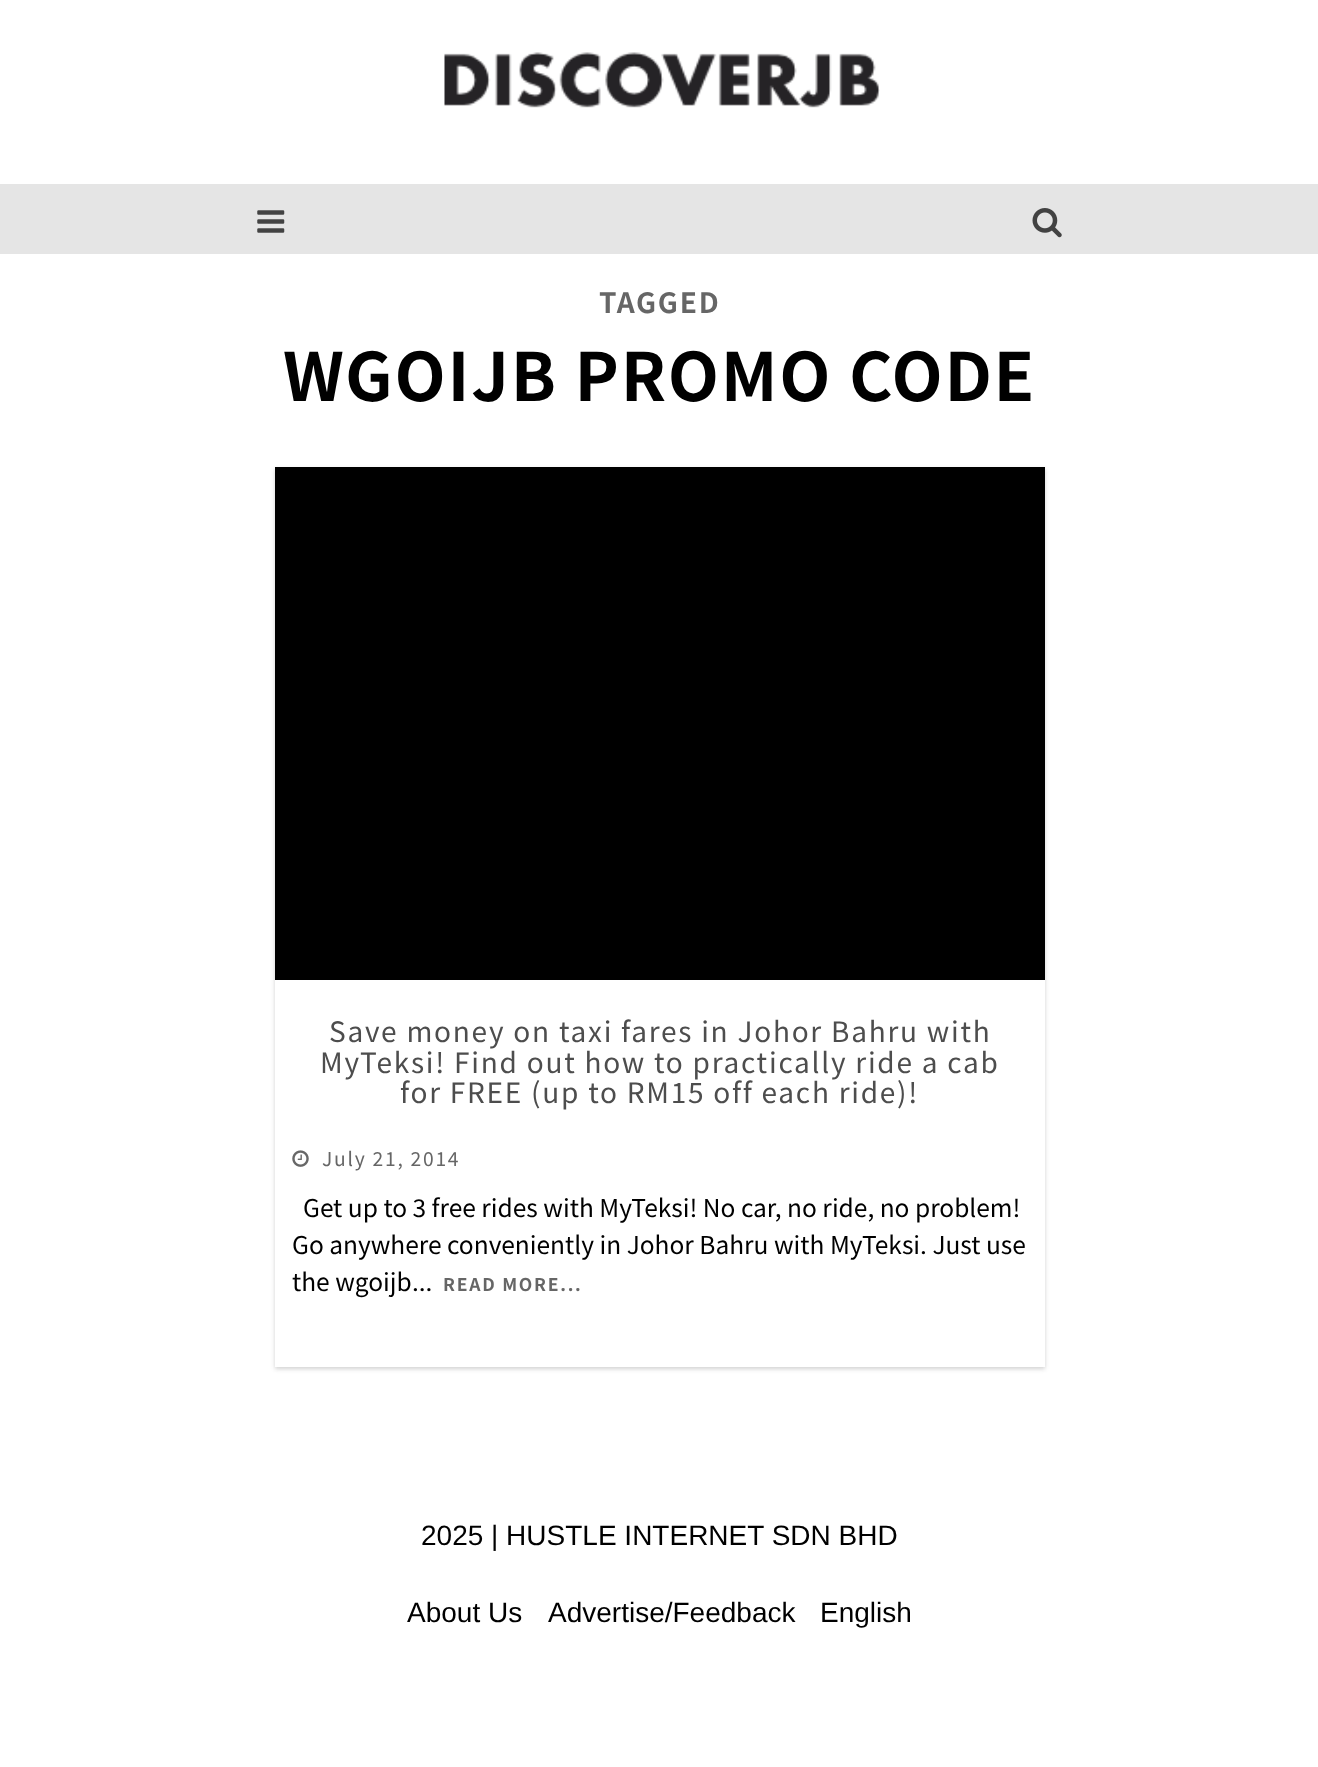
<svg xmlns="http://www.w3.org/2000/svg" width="1318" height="1767">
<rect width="100%" height="100%" fill="#fff"/>
<image x="444" y="52" width="436" height="56" href="media/1.png"/>
<rect y="184" width="1318" height="70" fill="#e5e5e5"/>
<image x="257" y="210" width="28" height="23" href="media/2.png"/>
<image x="1032" y="208" width="30" height="30" href="media/3.png"/>
<text x="599" y="313" style="font-family:Noto Sans SC;font-size:28px;font-weight:bold;letter-spacing:1.75px;fill:#666">TAGGED</text>
<text x="283" y="401" style="font-family:Noto Sans SC;font-size:66.5px;font-weight:bold;letter-spacing:1.75px;fill:#000">WGOIJB PROMO CODE</text>
<rect x="275" y="469" width="770" height="900" fill="#19191933" filter="blur(2px)"/>
<rect x="275" y="980" width="770" height="387" fill="#fff"/>
<rect x="275" y="467" width="770" height="513" fill="#000"/>
<text x="329" y="1042" style="font-family:Noto Sans SC;font-size:28px;letter-spacing:1.75px;fill:#4d4d4d">Save money on taxi fares in Johor Bahru with</text>
<text x="320" y="1073" style="font-family:Noto Sans SC;font-size:28px;letter-spacing:1.75px;fill:#4d4d4d">MyTeksi! Find out how to practically ride a cab</text>
<text x="400" y="1103" style="font-family:Noto Sans SC;font-size:28px;letter-spacing:1.75px;fill:#4d4d4d">for FREE (up to RM15 off each ride)!</text>
<image x="292" y="1150" width="17" height="17" href="media/4.png"/>
<text x="322" y="1166" style="font-family:Noto Sans SC;font-size:19.25px;letter-spacing:1.75px;fill:#666">July 21, 2014</text>
<text x="303" y="1217" style="font-family:Noto Sans SC;font-size:24.5px;fill:#000">Get up to 3 free rides with MyTeksi! No car, no ride, no problem!</text>
<text x="292" y="1254" style="font-family:Noto Sans SC;font-size:24.5px;fill:#000">Go anywhere conveniently in Johor Bahru with MyTeksi. Just use</text>
<text x="292" y="1291" style="font-family:Noto Sans SC;font-size:24.5px;fill:#000">the wgoijb</text>
<text x="412" y="1291" style="font-family:Noto Sans SC;font-size:24.5px;fill:#000">...</text>
<text x="443" y="1291" style="font-family:Noto Sans SC;font-size:17.5px;font-weight:bold;letter-spacing:1.75px;fill:#666">READ MORE...</text>
<text x="421" y="1545" style="font-family:Liberation Sans;font-size:28px;fill:#000">2025 | HUSTLE INTERNET SDN BHD</text>
<text x="407" y="1622" style="font-family:Liberation Sans;font-size:28px;fill:#000">About Us</text>
<text x="548" y="1622" style="font-family:Liberation Sans;font-size:28px;fill:#000">Advertise/Feedback</text>
<text x="820" y="1622" style="font-family:Liberation Sans;font-size:28px;fill:#000">English</text>
</svg>
